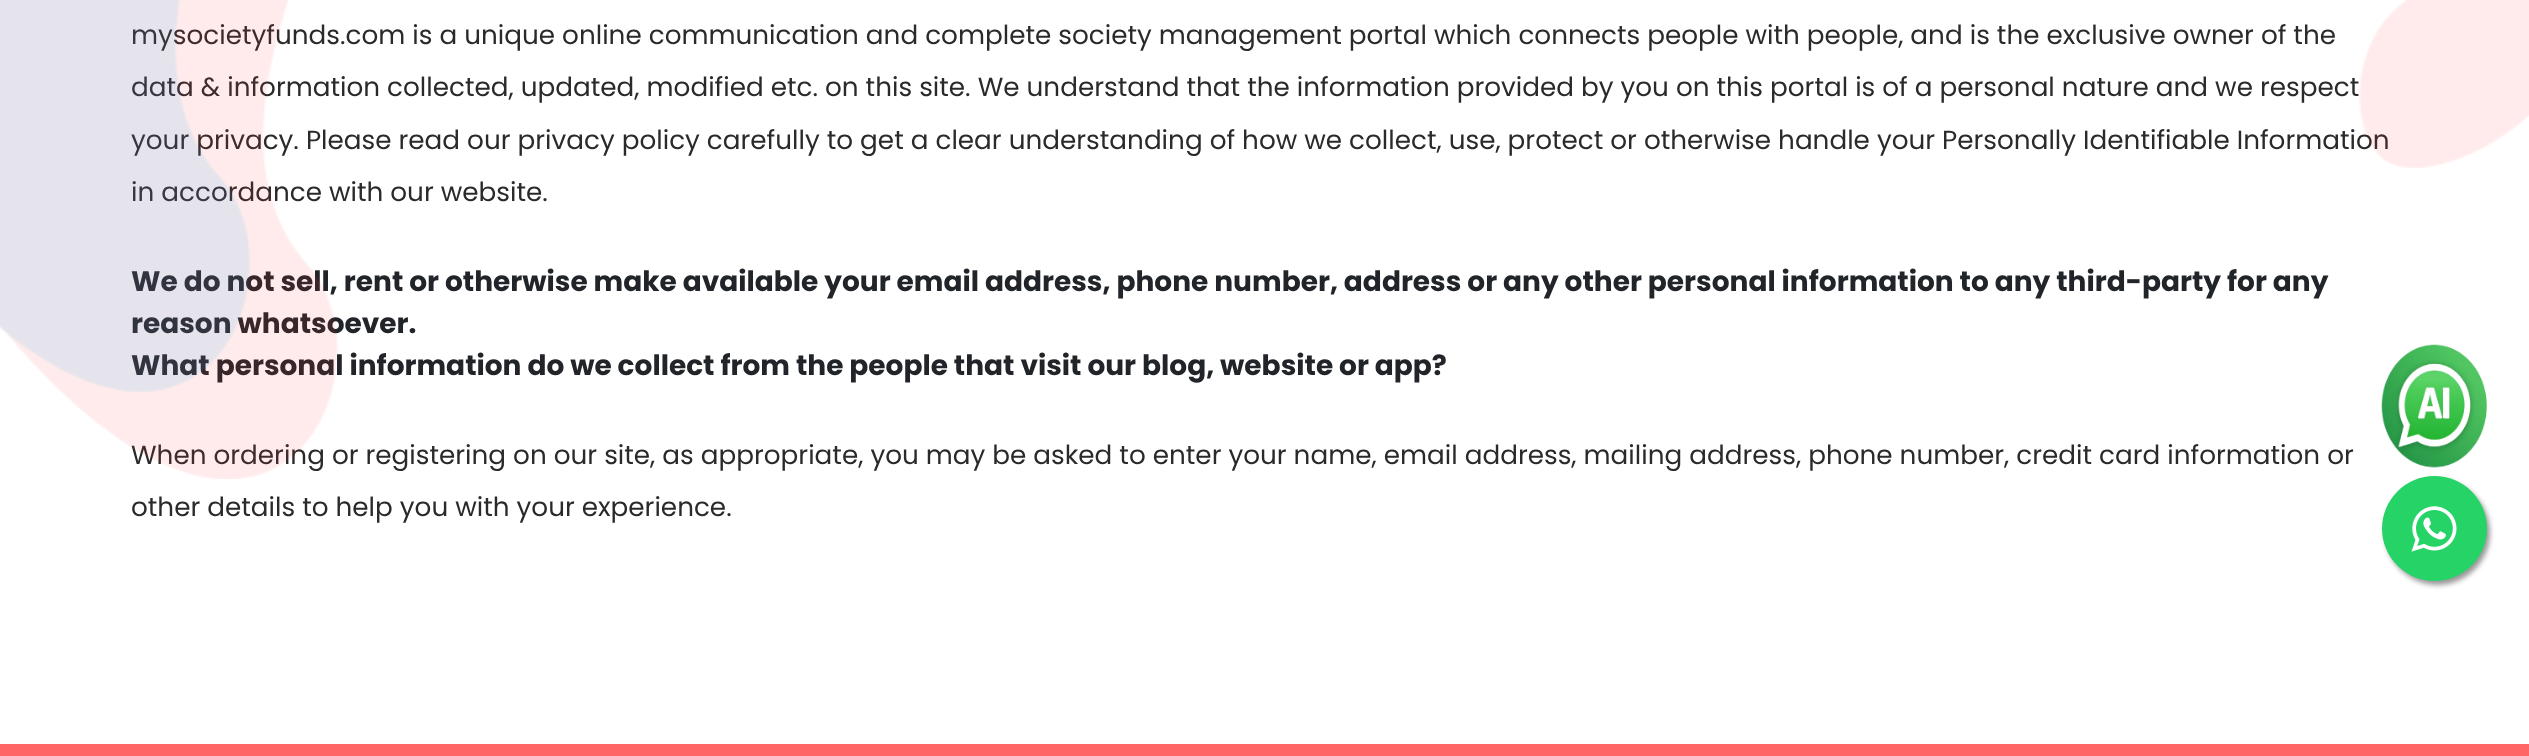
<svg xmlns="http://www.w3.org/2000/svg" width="2529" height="756">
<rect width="100%" height="100%" fill="#fff"/>
<text x="131" y="44" style="font-family:Poppins;font-size:26.25px;fill:#2a2a2a">mysocietyfunds.com is a unique online communication and complete society management portal which connects people with people, and is the exclusive owner of the</text>
<text x="131" y="96" style="font-family:Poppins;font-size:26.25px;fill:#2a2a2a">data &amp; information collected, updated, modified etc. on this site. We understand that the information provided by you on this portal is of a personal nature and we respect</text>
<text x="131" y="149" style="font-family:Poppins;font-size:26.25px;fill:#2a2a2a">your privacy. Please read our privacy policy carefully to get a clear understanding of how we collect, use, protect or otherwise handle your Personally Identifiable Information</text>
<text x="131" y="201" style="font-family:Poppins;font-size:26.25px;fill:#2a2a2a">in accordance with our website.</text>
<text x="131" y="291" style="font-family:Poppins;font-size:28px;font-weight:bold;fill:#212529">We do not sell, rent or otherwise make available your email address, phone number, address or any other personal information to any third-party for any</text>
<text x="131" y="333" style="font-family:Poppins;font-size:28px;font-weight:bold;fill:#212529">reason whatsoever.</text>
<text x="131" y="375" style="font-family:Poppins;font-size:28px;font-weight:bold;fill:#212529">What personal information do we collect from the people that visit our blog, website or app?</text>
<text x="131" y="464" style="font-family:Poppins;font-size:26.25px;fill:#2a2a2a">When ordering or registering on our site, as appropriate, you may be asked to enter your name, email address, mailing address, phone number, credit card information or</text>
<image x="0" y="0" width="338" height="479" href="media/1.png"/>
<image x="2359" y="0" width="170" height="168" href="media/2.png"/>
<text x="131" y="516" style="font-family:Poppins;font-size:26.25px;fill:#2a2a2a">other details to help you with your experience.</text>
<image x="2381" y="344" width="106" height="124" href="media/3.png"/>
<rect x="2385" y="480" width="105" height="105" rx="52.5" fill="#999" filter="blur(2.5px)"/>
<circle cx="2434.5" cy="528.5" r="52.5" fill="#25d366"/>
<image x="2411" y="506" width="46" height="46" href="media/4.png"/>
<rect y="744" width="2529" height="12" fill="#f66"/>
</svg>
